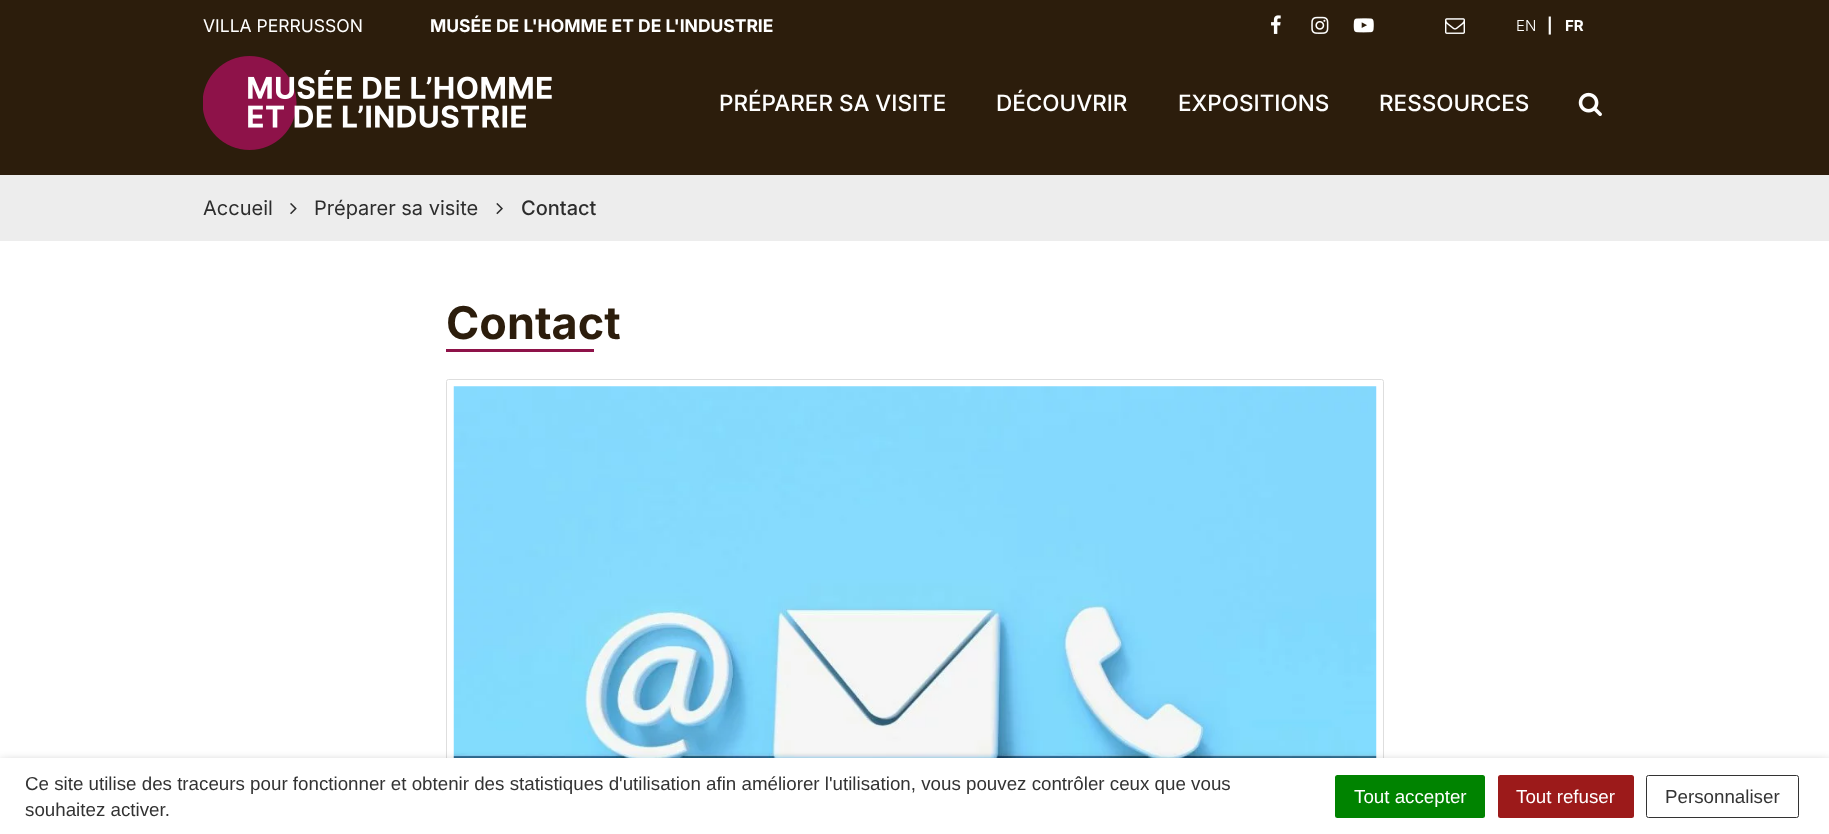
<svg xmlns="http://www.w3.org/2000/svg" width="1829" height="834">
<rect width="100%" height="100%" fill="#fff"/>
<rect width="1829" height="175" fill="#2c1d0c"/>
<text x="203" y="32" style="font-family:Inter;font-size:17.5px;fill:#fff">VILLA PERRUSSON</text>
<text x="430" y="32" style="font-family:Inter;font-size:17.5px;font-weight:bold;fill:#fff">MUSÉE DE L'HOMME ET DE L'INDUSTRIE</text>
<image x="1271" y="15" width="10" height="19" href="media/1.png"/>
<image x="1311" y="16" width="18" height="18" href="media/2.png"/>
<image x="1353" y="18" width="21" height="15" href="media/3.png"/>
<image x="1445" y="18" width="20" height="16" href="media/4.png"/>
<text x="1516" y="31" style="font-family:Inter;font-size:15px;font-weight:300;fill:#fff">EN</text>
<text x="1547" y="31" style="font-family:Inter;font-size:15px;font-weight:bold;fill:#fff">|</text>
<text x="1565" y="31" style="font-family:Inter;font-size:15px;font-weight:bold;fill:#fff">FR</text>
<image x="203" y="56" width="349" height="94" href="media/5.png"/>
<text x="719" y="111" style="font-family:Inter;font-size:22.5px;font-weight:500;fill:#fff">PRÉPARER SA VISITE</text>
<text x="996" y="111" style="font-family:Inter;font-size:22.5px;font-weight:500;fill:#fff">DÉCOUVRIR</text>
<text x="1178" y="111" style="font-family:Inter;font-size:22.5px;font-weight:500;fill:#fff">EXPOSITIONS</text>
<text x="1379" y="111" style="font-family:Inter;font-size:22.5px;font-weight:500;fill:#fff">RESSOURCES</text>
<image x="1578" y="92" width="24" height="25" href="media/6.png"/>
<rect y="175" width="1829" height="66" fill="#ededed"/>
<text x="203" y="215" style="font-family:Inter;font-size:20px;fill:#2d2d2d">Accueil</text>
<image x="290" y="203" width="7" height="12" href="media/7.png"/>
<text x="314" y="215" style="font-family:Inter;font-size:20px;fill:#2d2d2d">Préparer sa visite</text>
<image x="496" y="203" width="7" height="12" href="media/8.png"/>
<text x="521" y="215" style="font-family:Inter;font-size:20px;font-weight:500;fill:#2d2d2d">Contact</text>
<text x="446" y="339" style="font-family:Inter;font-size:45px;font-weight:bold;fill:#2c1d0c">Contact</text>
<rect x="446" y="349" width="148" height="3" fill="#8e1249"/>
<rect x="446.5" y="379.5" width="937" height="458" rx="2" fill="none" stroke="#dedede"/>
<image x="453" y="386" width="924" height="372" href="media/9.png"/>
<rect y="764" width="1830" height="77" fill="#00000080" filter="blur(6px)"/>
<rect y="758" width="1829" height="76" fill="#fff"/>
<text x="25" y="790" style="font-family:Liberation Sans;font-size:18.75px;fill:#333">Ce site utilise des traceurs pour fonctionner et obtenir des statistiques d'utilisation afin améliorer l'utilisation, vous pouvez contrôler ceux que vous</text>
<text x="25" y="816" style="font-family:Liberation Sans;font-size:18.75px;fill:#333">souhaitez activer.</text>
<rect x="1335" y="775" width="150" height="43" rx="2.5" fill="#008300"/>
<text x="1354" y="803" style="font-family:Liberation Sans;font-size:18.75px;fill:#fff">Tout accepter</text>
<rect x="1498" y="775" width="136" height="43" rx="2.5" fill="#9c1a1a"/>
<text x="1516" y="803" style="font-family:Liberation Sans;font-size:18.75px;fill:#fff">Tout refuser</text>
<rect x="1646.5" y="775.5" width="152" height="42" rx="2" fill="none" stroke="#333"/>
<text x="1665" y="803" style="font-family:Liberation Sans;font-size:18.75px;fill:#333">Personnaliser</text>
</svg>
